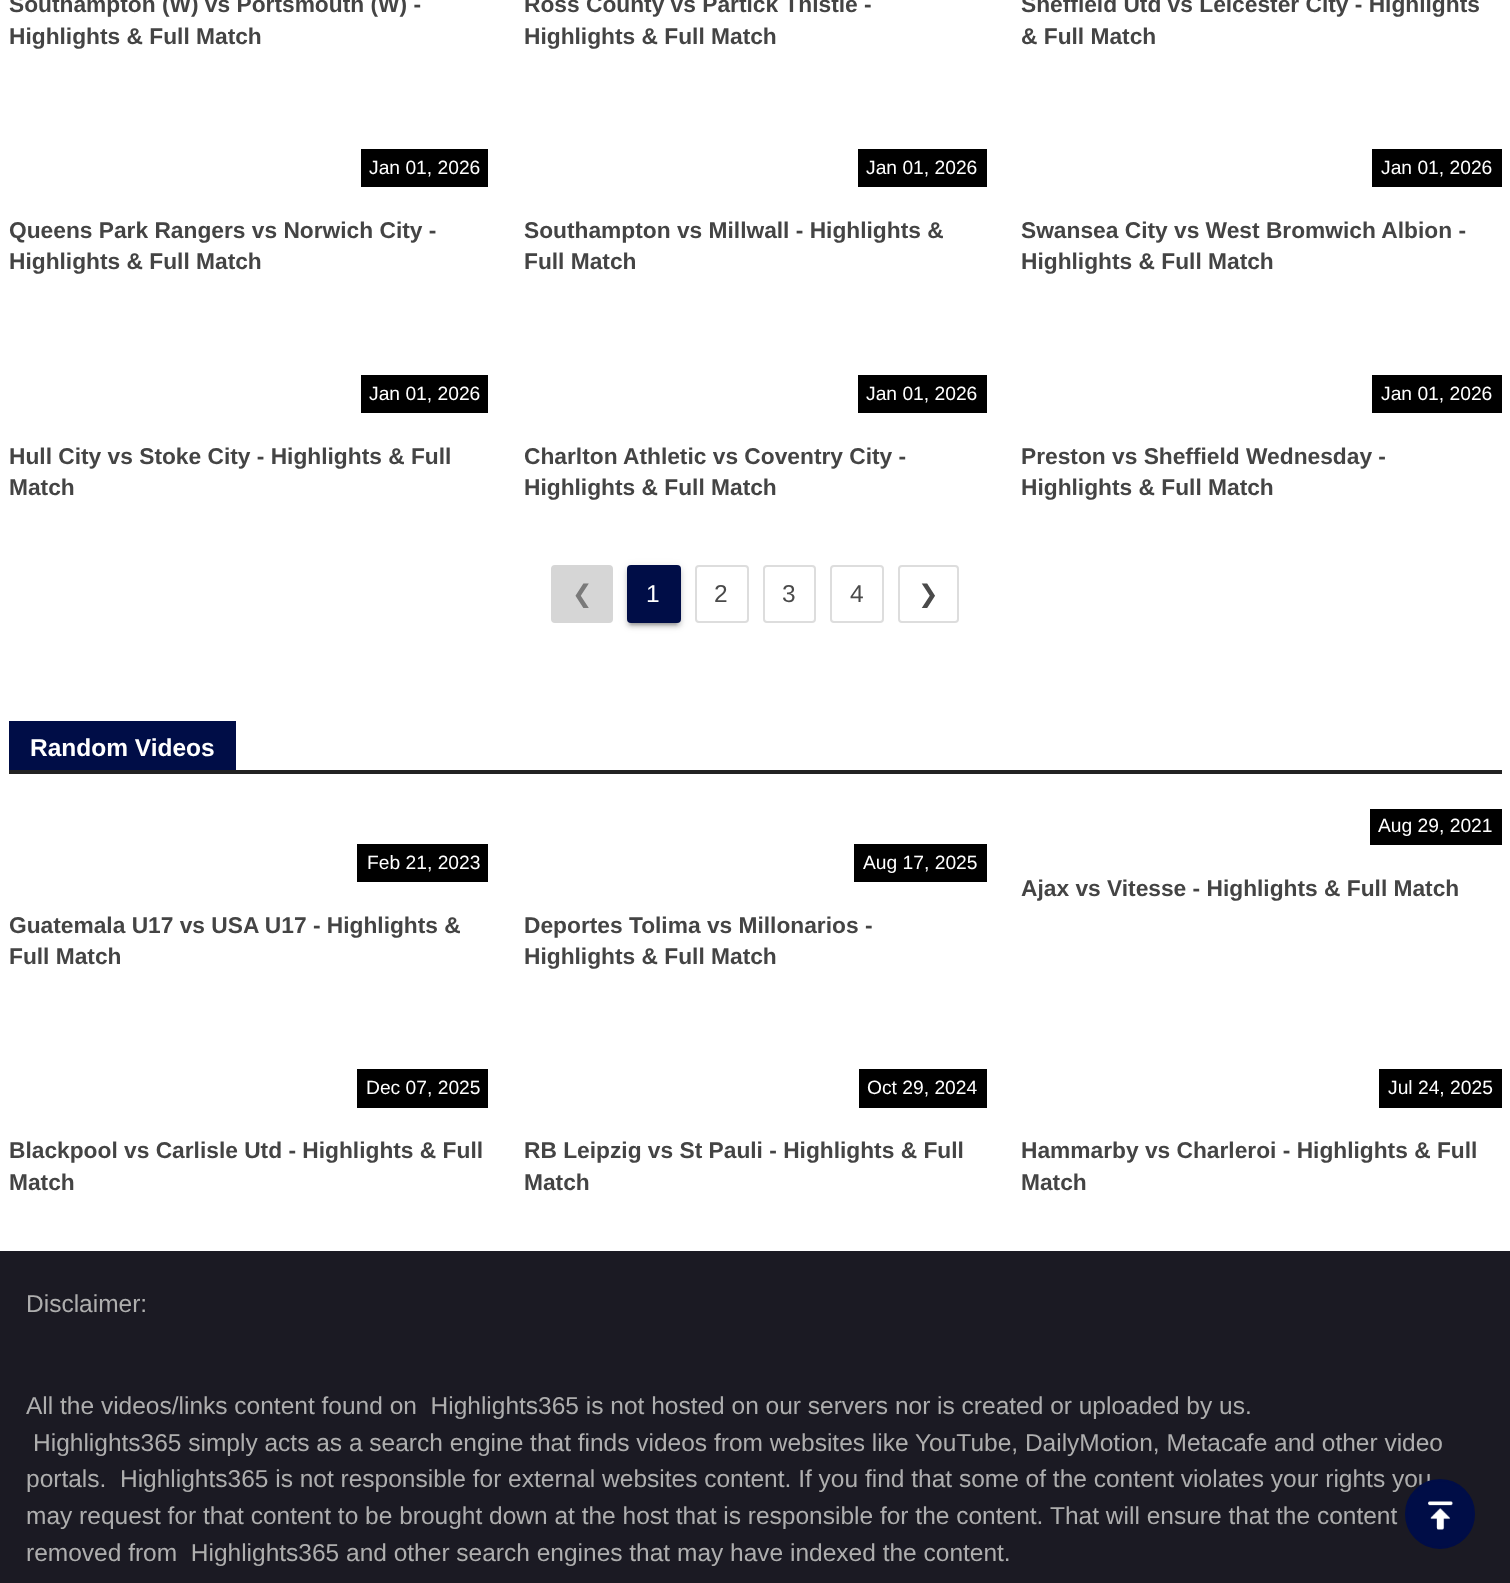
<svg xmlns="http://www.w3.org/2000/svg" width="1510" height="1583">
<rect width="100%" height="100%" fill="#fff"/>
<text x="9" y="12" style="font-family:Liberation Sans;font-size:22.75px;font-weight:bold;fill:#444">Southampton (W) vs Portsmouth (W) -</text>
<text x="9" y="44" style="font-family:Liberation Sans;font-size:22.75px;font-weight:bold;fill:#444">Highlights &amp; Full Match</text>
<text x="524" y="12" style="font-family:Liberation Sans;font-size:22.75px;font-weight:bold;fill:#444">Ross County vs Partick Thistle -</text>
<text x="524" y="44" style="font-family:Liberation Sans;font-size:22.75px;font-weight:bold;fill:#444">Highlights &amp; Full Match</text>
<text x="1021" y="12" style="font-family:Liberation Sans;font-size:22.75px;font-weight:bold;fill:#444">Sheffield Utd vs Leicester City - Highlights</text>
<text x="1021" y="44" style="font-family:Liberation Sans;font-size:22.75px;font-weight:bold;fill:#444">&amp; Full Match</text>
<rect x="361" y="149" width="127" height="38" fill="#000"/>
<text x="369" y="174" style="font-family:Liberation Sans;font-size:19.25px;fill:#fff">Jan 01, 2026</text>
<text x="9" y="238" style="font-family:Liberation Sans;font-size:22.75px;font-weight:bold;fill:#444">Queens Park Rangers vs Norwich City -</text>
<text x="9" y="269" style="font-family:Liberation Sans;font-size:22.75px;font-weight:bold;fill:#444">Highlights &amp; Full Match</text>
<rect x="858" y="149" width="129" height="38" fill="#000"/>
<text x="866" y="174" style="font-family:Liberation Sans;font-size:19.25px;fill:#fff">Jan 01, 2026</text>
<text x="524" y="238" style="font-family:Liberation Sans;font-size:22.75px;font-weight:bold;fill:#444">Southampton vs Millwall - Highlights &amp;</text>
<text x="524" y="269" style="font-family:Liberation Sans;font-size:22.75px;font-weight:bold;fill:#444">Full Match</text>
<rect x="1372" y="149" width="130" height="38" fill="#000"/>
<text x="1381" y="174" style="font-family:Liberation Sans;font-size:19.25px;fill:#fff">Jan 01, 2026</text>
<text x="1021" y="238" style="font-family:Liberation Sans;font-size:22.75px;font-weight:bold;fill:#444">Swansea City vs West Bromwich Albion -</text>
<text x="1021" y="269" style="font-family:Liberation Sans;font-size:22.75px;font-weight:bold;fill:#444">Highlights &amp; Full Match</text>
<rect x="361" y="375" width="127" height="38" fill="#000"/>
<text x="369" y="400" style="font-family:Liberation Sans;font-size:19.25px;fill:#fff">Jan 01, 2026</text>
<text x="9" y="464" style="font-family:Liberation Sans;font-size:22.75px;font-weight:bold;fill:#444">Hull City vs Stoke City - Highlights &amp; Full</text>
<text x="9" y="495" style="font-family:Liberation Sans;font-size:22.75px;font-weight:bold;fill:#444">Match</text>
<rect x="858" y="375" width="129" height="38" fill="#000"/>
<text x="866" y="400" style="font-family:Liberation Sans;font-size:19.25px;fill:#fff">Jan 01, 2026</text>
<text x="524" y="464" style="font-family:Liberation Sans;font-size:22.75px;font-weight:bold;fill:#444">Charlton Athletic vs Coventry City -</text>
<text x="524" y="495" style="font-family:Liberation Sans;font-size:22.75px;font-weight:bold;fill:#444">Highlights &amp; Full Match</text>
<rect x="1372" y="375" width="130" height="38" fill="#000"/>
<text x="1381" y="400" style="font-family:Liberation Sans;font-size:19.25px;fill:#fff">Jan 01, 2026</text>
<text x="1021" y="464" style="font-family:Liberation Sans;font-size:22.75px;font-weight:bold;fill:#444">Preston vs Sheffield Wednesday -</text>
<text x="1021" y="495" style="font-family:Liberation Sans;font-size:22.75px;font-weight:bold;fill:#444">Highlights &amp; Full Match</text>
<rect x="552" y="566" width="60" height="56" rx="3" fill="#d6d6d6" stroke="#d6d6d6" stroke-width="2"/>
<text x="572" y="602" style="font-family:DejaVu Sans;font-size:24.5px;fill:#7a7a7a">❮</text>
<rect x="627" y="567" width="54" height="58" rx="4" fill="#0000001f" filter="blur(4.5px)"/>
<rect x="627" y="569" width="54" height="58" rx="4" fill="#00000024" filter="blur(2px)"/>
<rect x="630" y="574" width="47" height="51" fill="#00000033" filter="blur(1px)"/>
<rect x="627" y="565" width="54" height="58" rx="4" fill="#000d47"/>
<text x="646" y="602" style="font-family:Liberation Sans;font-size:24.5px;fill:#fff">1</text>
<rect x="696" y="566" width="52" height="56" rx="3" fill="none" stroke="#ddd" stroke-width="2"/>
<text x="714" y="602" style="font-family:Liberation Sans;font-size:24.5px;fill:#4a4a4a">2</text>
<rect x="764" y="566" width="51" height="56" rx="3" fill="none" stroke="#ddd" stroke-width="2"/>
<text x="782" y="602" style="font-family:Liberation Sans;font-size:24.5px;fill:#4a4a4a">3</text>
<rect x="831" y="566" width="52" height="56" rx="3" fill="none" stroke="#ddd" stroke-width="2"/>
<text x="850" y="602" style="font-family:Liberation Sans;font-size:24.5px;fill:#4a4a4a">4</text>
<rect x="899" y="566" width="59" height="56" rx="3" fill="none" stroke="#ddd" stroke-width="2"/>
<text x="918" y="602" style="font-family:DejaVu Sans;font-size:24.5px;fill:#4a4a4a">❯</text>
<rect x="9" y="770" width="1493" height="4" fill="#222"/>
<rect x="9" y="721" width="227" height="49" fill="#000d47"/>
<text x="30" y="756" style="font-family:Liberation Sans;font-size:24.5px;font-weight:bold;fill:#fff">Random Videos</text>
<rect x="357" y="844" width="131" height="38" fill="#000"/>
<text x="367" y="869" style="font-family:Liberation Sans;font-size:19.25px;fill:#fff">Feb 21, 2023</text>
<text x="9" y="933" style="font-family:Liberation Sans;font-size:22.75px;font-weight:bold;fill:#444">Guatemala U17 vs USA U17 - Highlights &amp;</text>
<text x="9" y="964" style="font-family:Liberation Sans;font-size:22.75px;font-weight:bold;fill:#444">Full Match</text>
<rect x="854" y="844" width="133" height="38" fill="#000"/>
<text x="863" y="869" style="font-family:Liberation Sans;font-size:19.25px;fill:#fff">Aug 17, 2025</text>
<text x="524" y="933" style="font-family:Liberation Sans;font-size:22.75px;font-weight:bold;fill:#444">Deportes Tolima vs Millonarios -</text>
<text x="524" y="964" style="font-family:Liberation Sans;font-size:22.75px;font-weight:bold;fill:#444">Highlights &amp; Full Match</text>
<rect x="1370" y="809" width="132" height="36" fill="#000"/>
<text x="1378" y="832" style="font-family:Liberation Sans;font-size:19.25px;fill:#fff">Aug 29, 2021</text>
<text x="1021" y="896" style="font-family:Liberation Sans;font-size:22.75px;font-weight:bold;fill:#444">Ajax vs Vitesse - Highlights &amp; Full Match</text>
<rect x="357" y="1069" width="131" height="39" fill="#000"/>
<text x="366" y="1094" style="font-family:Liberation Sans;font-size:19.25px;fill:#fff">Dec 07, 2025</text>
<text x="9" y="1158" style="font-family:Liberation Sans;font-size:22.75px;font-weight:bold;fill:#444">Blackpool vs Carlisle Utd - Highlights &amp; Full</text>
<text x="9" y="1190" style="font-family:Liberation Sans;font-size:22.75px;font-weight:bold;fill:#444">Match</text>
<rect x="859" y="1069" width="128" height="39" fill="#000"/>
<text x="867" y="1094" style="font-family:Liberation Sans;font-size:19.25px;fill:#fff">Oct 29, 2024</text>
<text x="524" y="1158" style="font-family:Liberation Sans;font-size:22.75px;font-weight:bold;fill:#444">RB Leipzig vs St Pauli - Highlights &amp; Full</text>
<text x="524" y="1190" style="font-family:Liberation Sans;font-size:22.75px;font-weight:bold;fill:#444">Match</text>
<rect x="1379" y="1069" width="123" height="39" fill="#000"/>
<text x="1388" y="1094" style="font-family:Liberation Sans;font-size:19.25px;fill:#fff">Jul 24, 2025</text>
<text x="1021" y="1158" style="font-family:Liberation Sans;font-size:22.75px;font-weight:bold;fill:#444">Hammarby vs Charleroi - Highlights &amp; Full</text>
<text x="1021" y="1190" style="font-family:Liberation Sans;font-size:22.75px;font-weight:bold;fill:#444">Match</text>
<rect y="1251" width="1510" height="332" fill="#1b1a23"/>
<text x="26" y="1312" style="font-family:Liberation Sans;font-size:24.5px;fill:#aeaeae">Disclaimer:</text>
<text x="26" y="1414" style="font-family:Liberation Sans;font-size:24.5px;fill:#aeaeae" xml:space="preserve">All the videos/links content found on  Highlights365 is not hosted on our servers nor is created or uploaded by us.</text>
<text x="33" y="1451" style="font-family:Liberation Sans;font-size:24.5px;fill:#aeaeae">Highlights365 simply acts as a search engine that finds videos from websites like YouTube, DailyMotion, Metacafe and other video</text>
<text x="26" y="1487" style="font-family:Liberation Sans;font-size:24.5px;fill:#aeaeae" xml:space="preserve">portals.  Highlights365 is not responsible for external websites content. If you find that some of the content violates your rights you</text>
<text x="26" y="1524" style="font-family:Liberation Sans;font-size:24.5px;fill:#aeaeae">may request for that content to be brought down at the host that is responsible for the content.</text>
<text x="1050" y="1524" style="font-family:Liberation Sans;font-size:24.5px;fill:#aeaeae">That will ensure that the content</text>
<text x="26" y="1561" style="font-family:Liberation Sans;font-size:24.5px;fill:#aeaeae" xml:space="preserve">removed from  Highlights365 and other search engines that may have indexed the content.</text>
<circle cx="1440" cy="1514" r="34" fill="#000d47" stroke="#000d47" stroke-width="2"/>
<image x="1428" y="1501" width="25" height="29" href="media/1.png"/>
</svg>
